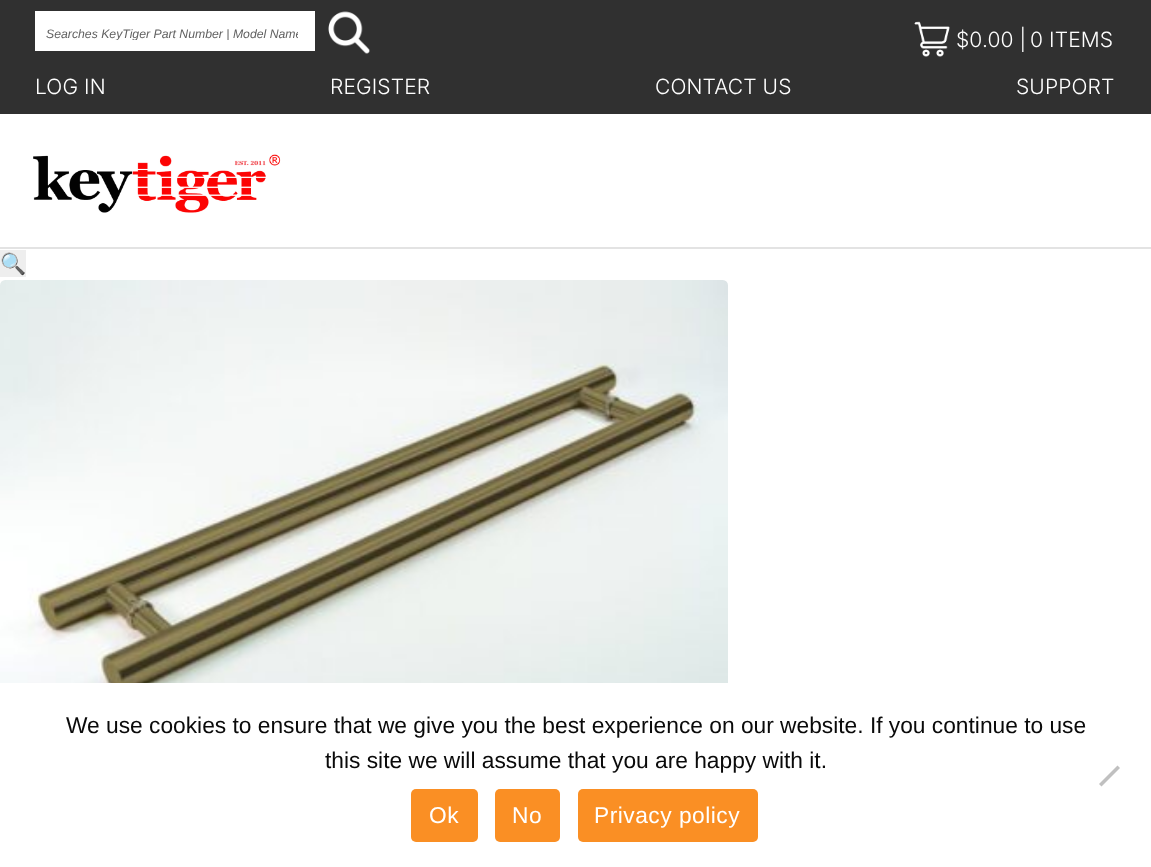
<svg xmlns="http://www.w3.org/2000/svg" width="1151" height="867">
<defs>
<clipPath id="clip1"><rect x="46" y="28" width="252" height="12"/></clipPath>
</defs>
<rect width="100%" height="100%" fill="#fff"/>
<rect y="247" width="1151" height="2" fill="#e3e3e3"/>
<rect width="1151" height="114" fill="#303030"/>
<image x="914" y="21" width="36" height="36" href="media/1.png"/>
<text x="956" y="47" style="font-family:Inter;font-size:21px;font-weight:300;letter-spacing:0.1px;fill:#fff">$0.00 |</text>
<text x="1030" y="47" style="font-family:Inter;font-size:21px;font-weight:300;letter-spacing:0.1px;fill:#fff">0 ITEMS</text>
<text x="35" y="94" style="font-family:Inter;font-size:21px;font-weight:300;letter-spacing:0.1px;fill:#fff">LOG IN</text>
<text x="330" y="94" style="font-family:Inter;font-size:21px;font-weight:300;letter-spacing:0.1px;fill:#fff">REGISTER</text>
<text x="655" y="94" style="font-family:Inter;font-size:21px;font-weight:300;letter-spacing:0.1px;fill:#fff">CONTACT US</text>
<text x="1016" y="94" style="font-family:Inter;font-size:21px;font-weight:300;letter-spacing:0.1px;fill:#fff">SUPPORT</text>
<rect x="35" y="11" width="280" height="40" fill="#fff"/>
<g clip-path="url(#clip1)">
<text x="46" y="38" style="font-family:Liberation Sans;font-size:12.25px;font-style:italic;fill:#616161">Searches KeyTiger Part Number | Model Name</text>
</g>
<image x="328" y="11" width="42" height="43" href="media/2.png"/>
<image x="33" y="154" width="248" height="59" href="media/3.png"/>
<rect y="250" width="26" height="27" fill="#eee"/>
<text x="0" y="271" style="font-family:Noto Color Emoji;font-size:21px;fill:#333">🔍</text>
<image x="0" y="280" width="728" height="403" href="media/4.png"/>
<text x="66" y="733" style="font-family:Liberation Sans;font-size:22.75px;fill:#0a0a0a">We use cookies to ensure that we give you the best experience on our website. If you continue to use</text>
<text x="325" y="768" style="font-family:Liberation Sans;font-size:22.75px;fill:#0a0a0a">this site we will assume that you are happy with it.</text>
<path d="M1117.5 765.5l2.5 2.5l-18.5 18.5l-2.5-2.5z" fill="#c0c0c0"/>
<rect x="411" y="789" width="67" height="53" rx="5" fill="#fa8f24"/>
<text x="429" y="823" style="font-family:Liberation Sans;font-size:22.75px;letter-spacing:0.5px;fill:#fff">Ok</text>
<rect x="495" y="789" width="65" height="53" rx="5" fill="#fa8f24"/>
<text x="512" y="823" style="font-family:Liberation Sans;font-size:22.75px;letter-spacing:0.5px;fill:#fff">No</text>
<rect x="578" y="789" width="180" height="53" rx="5" fill="#fa8f24"/>
<text x="594" y="823" style="font-family:Liberation Sans;font-size:22.75px;letter-spacing:0.5px;fill:#fff">Privacy policy</text>
</svg>
